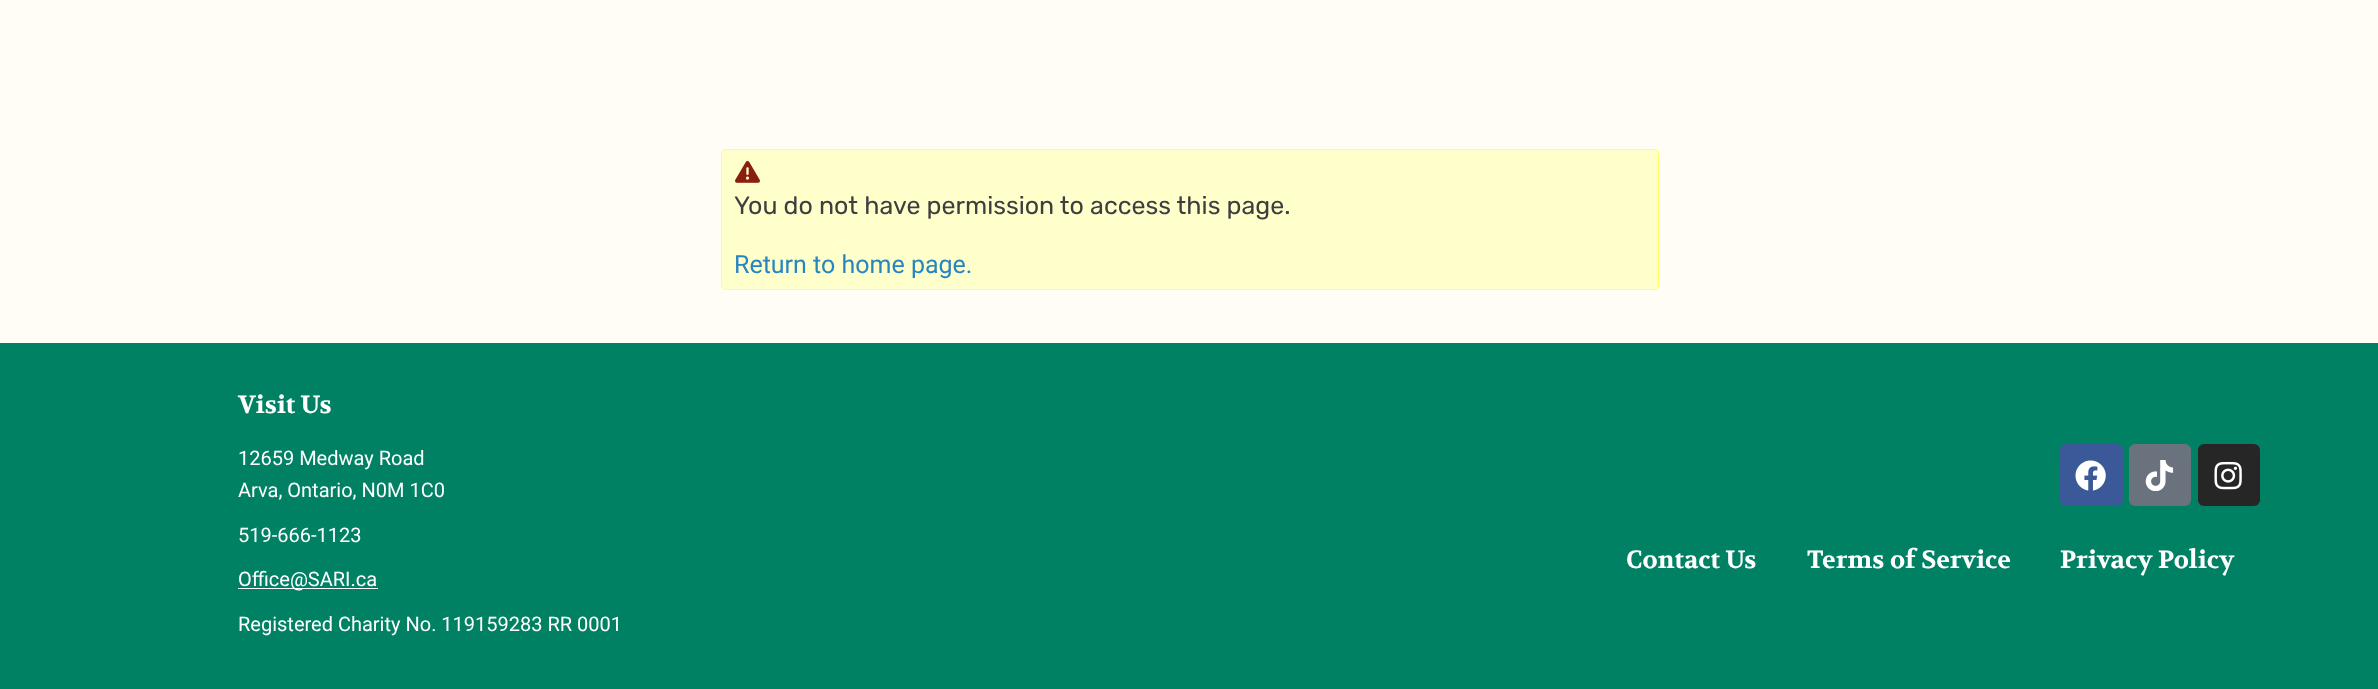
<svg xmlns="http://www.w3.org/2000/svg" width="2378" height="689">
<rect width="100%" height="100%" fill="#fffdf6"/>
<rect x="721.5" y="149.5" width="937" height="140" rx="4.5" fill="#ffc" stroke="#ff6"/>
<image x="735" y="161" width="25" height="22" href="media/1.png"/>
<text x="734" y="214" style="font-family:Rubik;font-size:25px;fill:#3e3e3e">You do not have permission to access this page.</text>
<text x="734" y="273" style="font-family:Roboto;font-size:25px;fill:#2786c2">Return to home page.</text>
<rect y="343" width="2378" height="346" fill="#008164"/>
<text x="238" y="413" style="font-family:Volkhov;font-size:25px;font-weight:bold;fill:#fff">Visit Us</text>
<text x="238" y="465" style="font-family:Roboto;font-size:20px;fill:#fff">12659 Medway Road</text>
<text x="238" y="497" style="font-family:Roboto;font-size:20px;fill:#fff">Arva, Ontario, N0M 1C0</text>
<text x="238" y="542" style="font-family:Roboto;font-size:20px;fill:#fff">519-666-1123</text>
<rect x="238" y="588" width="140" height="1" fill="#fff"/>
<text x="238" y="586" style="font-family:Roboto;font-size:20px;fill:#fff">Office@SARI.ca</text>
<text x="238" y="631" style="font-family:Roboto;font-size:20px;fill:#fff">Registered Charity No. 119159283 RR 0001</text>
<rect x="2060" y="444" width="63" height="62" rx="6" fill="#3b5998"/>
<image x="2075" y="460" width="31" height="31" href="media/2.png"/>
<rect x="2129" y="444" width="62" height="62" rx="6" fill="#69727d"/>
<image x="2145" y="460" width="29" height="31" href="media/3.png"/>
<rect x="2198" y="444" width="62" height="62" rx="6" fill="#262626"/>
<image x="2214" y="461" width="28" height="29" href="media/4.png"/>
<text x="1626" y="568" style="font-family:Volkhov;font-size:25px;font-weight:bold;fill:#fff">Contact Us</text>
<text x="1807" y="568" style="font-family:Volkhov;font-size:25px;font-weight:bold;fill:#fff">Terms of Service</text>
<text x="2060" y="568" style="font-family:Volkhov;font-size:25px;font-weight:bold;fill:#fff">Privacy Policy</text>
</svg>
